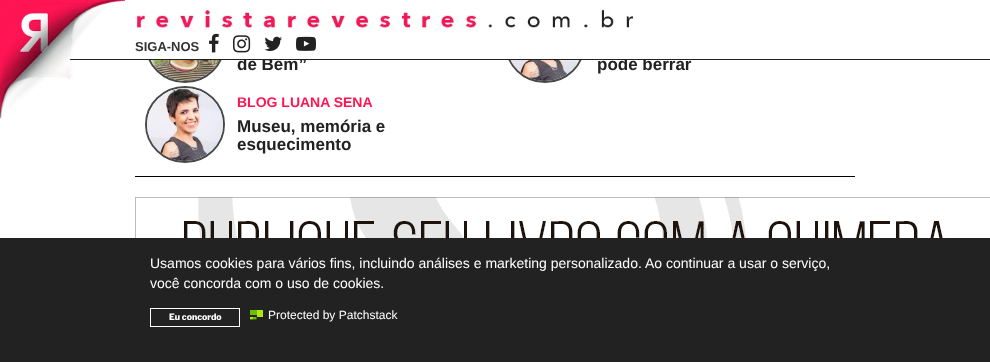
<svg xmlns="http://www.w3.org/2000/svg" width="990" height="362">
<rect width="100%" height="100%" fill="#fff"/>
<path d="M185 7c21.5 0 39 17 39 37.5c0 20.5-17.5 37.5-39 37.5c-21.5 0-39-17-39-37.5c0-20.5 17.5-37.5 39-37.5z" fill="none" stroke="#484848" stroke-width="2"/>
<path d="M545 7c21.5 0 39 17 39 37.5c0 20.5-17.5 37.5-39 37.5c-21.5 0-39-17-39-37.5c0-20.5 17.5-37.5 39-37.5z" fill="none" stroke="#484848" stroke-width="2"/>
<rect x="69" y="59" width="921" height="1" fill="#222"/>
<image x="0" y="0" width="125" height="119" href="media/1.png"/>
<text x="237" y="70" style="font-family:Liberation Sans;font-size:17px;font-weight:bold;fill:#222">de Bem”</text>
<text x="597" y="70" style="font-family:Liberation Sans;font-size:17px;font-weight:bold;fill:#222">pode berrar</text>
<rect x="145" y="6" width="501" height="53" fill="#fff"/>
<image x="135" y="9" width="499" height="21" href="media/2.png"/>
<text x="135" y="51" style="font-family:Liberation Sans;font-size:13px;font-weight:bold;fill:#333">SIGA-NOS</text>
<image x="209" y="33" width="10" height="20" href="media/3.png"/>
<image x="233" y="35" width="18" height="18" href="media/4.png"/>
<image x="264" y="36" width="18" height="15" href="media/5.png"/>
<image x="296" y="36" width="20" height="15" href="media/6.png"/>
<rect x="135" y="176" width="720" height="1" fill="#000"/>
<image x="150" y="60" width="70" height="21" href="media/7.png"/>
<image x="510" y="60" width="70" height="21" href="media/8.png"/>
<path d="M185 87c21.5 0 39 17 39 37.5c0 20.5-17.5 37.5-39 37.5c-21.5 0-39-17-39-37.5c0-20.5 17.5-37.5 39-37.5z" fill="none" stroke="#484848" stroke-width="2"/>
<image x="147" y="88" width="76" height="73" href="media/9.png"/>
<text x="237" y="107" style="font-family:Liberation Sans;font-size:14px;font-weight:bold;fill:#ff1554">BLOG LUANA SENA</text>
<text x="237" y="132" style="font-family:Liberation Sans;font-size:17px;font-weight:bold;fill:#222">Museu, memória e</text>
<text x="237" y="150" style="font-family:Liberation Sans;font-size:17px;font-weight:bold;fill:#222">esquecimento</text>
<image x="135" y="197" width="855" height="41" href="media/10.png"/>
<rect y="238" width="990" height="124" fill="#222"/>
<text x="150" y="268" style="font-family:Liberation Sans;font-size:14px;fill:#fff">Usamos cookies para vários fins, incluindo análises e marketing personalizado. Ao continuar a usar o serviço,</text>
<text x="150" y="288" style="font-family:Liberation Sans;font-size:14px;fill:#fff">você concorda com o uso de cookies.</text>
<rect x="150.5" y="308.5" width="89" height="18" fill="none" stroke="#fff"/>
<text x="169" y="320" style="font-family:Libre Franklin;font-size:8.75px;font-weight:800;fill:#fff">Eu concordo</text>
<image x="250" y="310" width="13" height="10" href="media/11.png"/>
<text x="268" y="319" style="font-family:Liberation Sans;font-size:12px;fill:#fff">Protected by Patchstack</text>
</svg>
